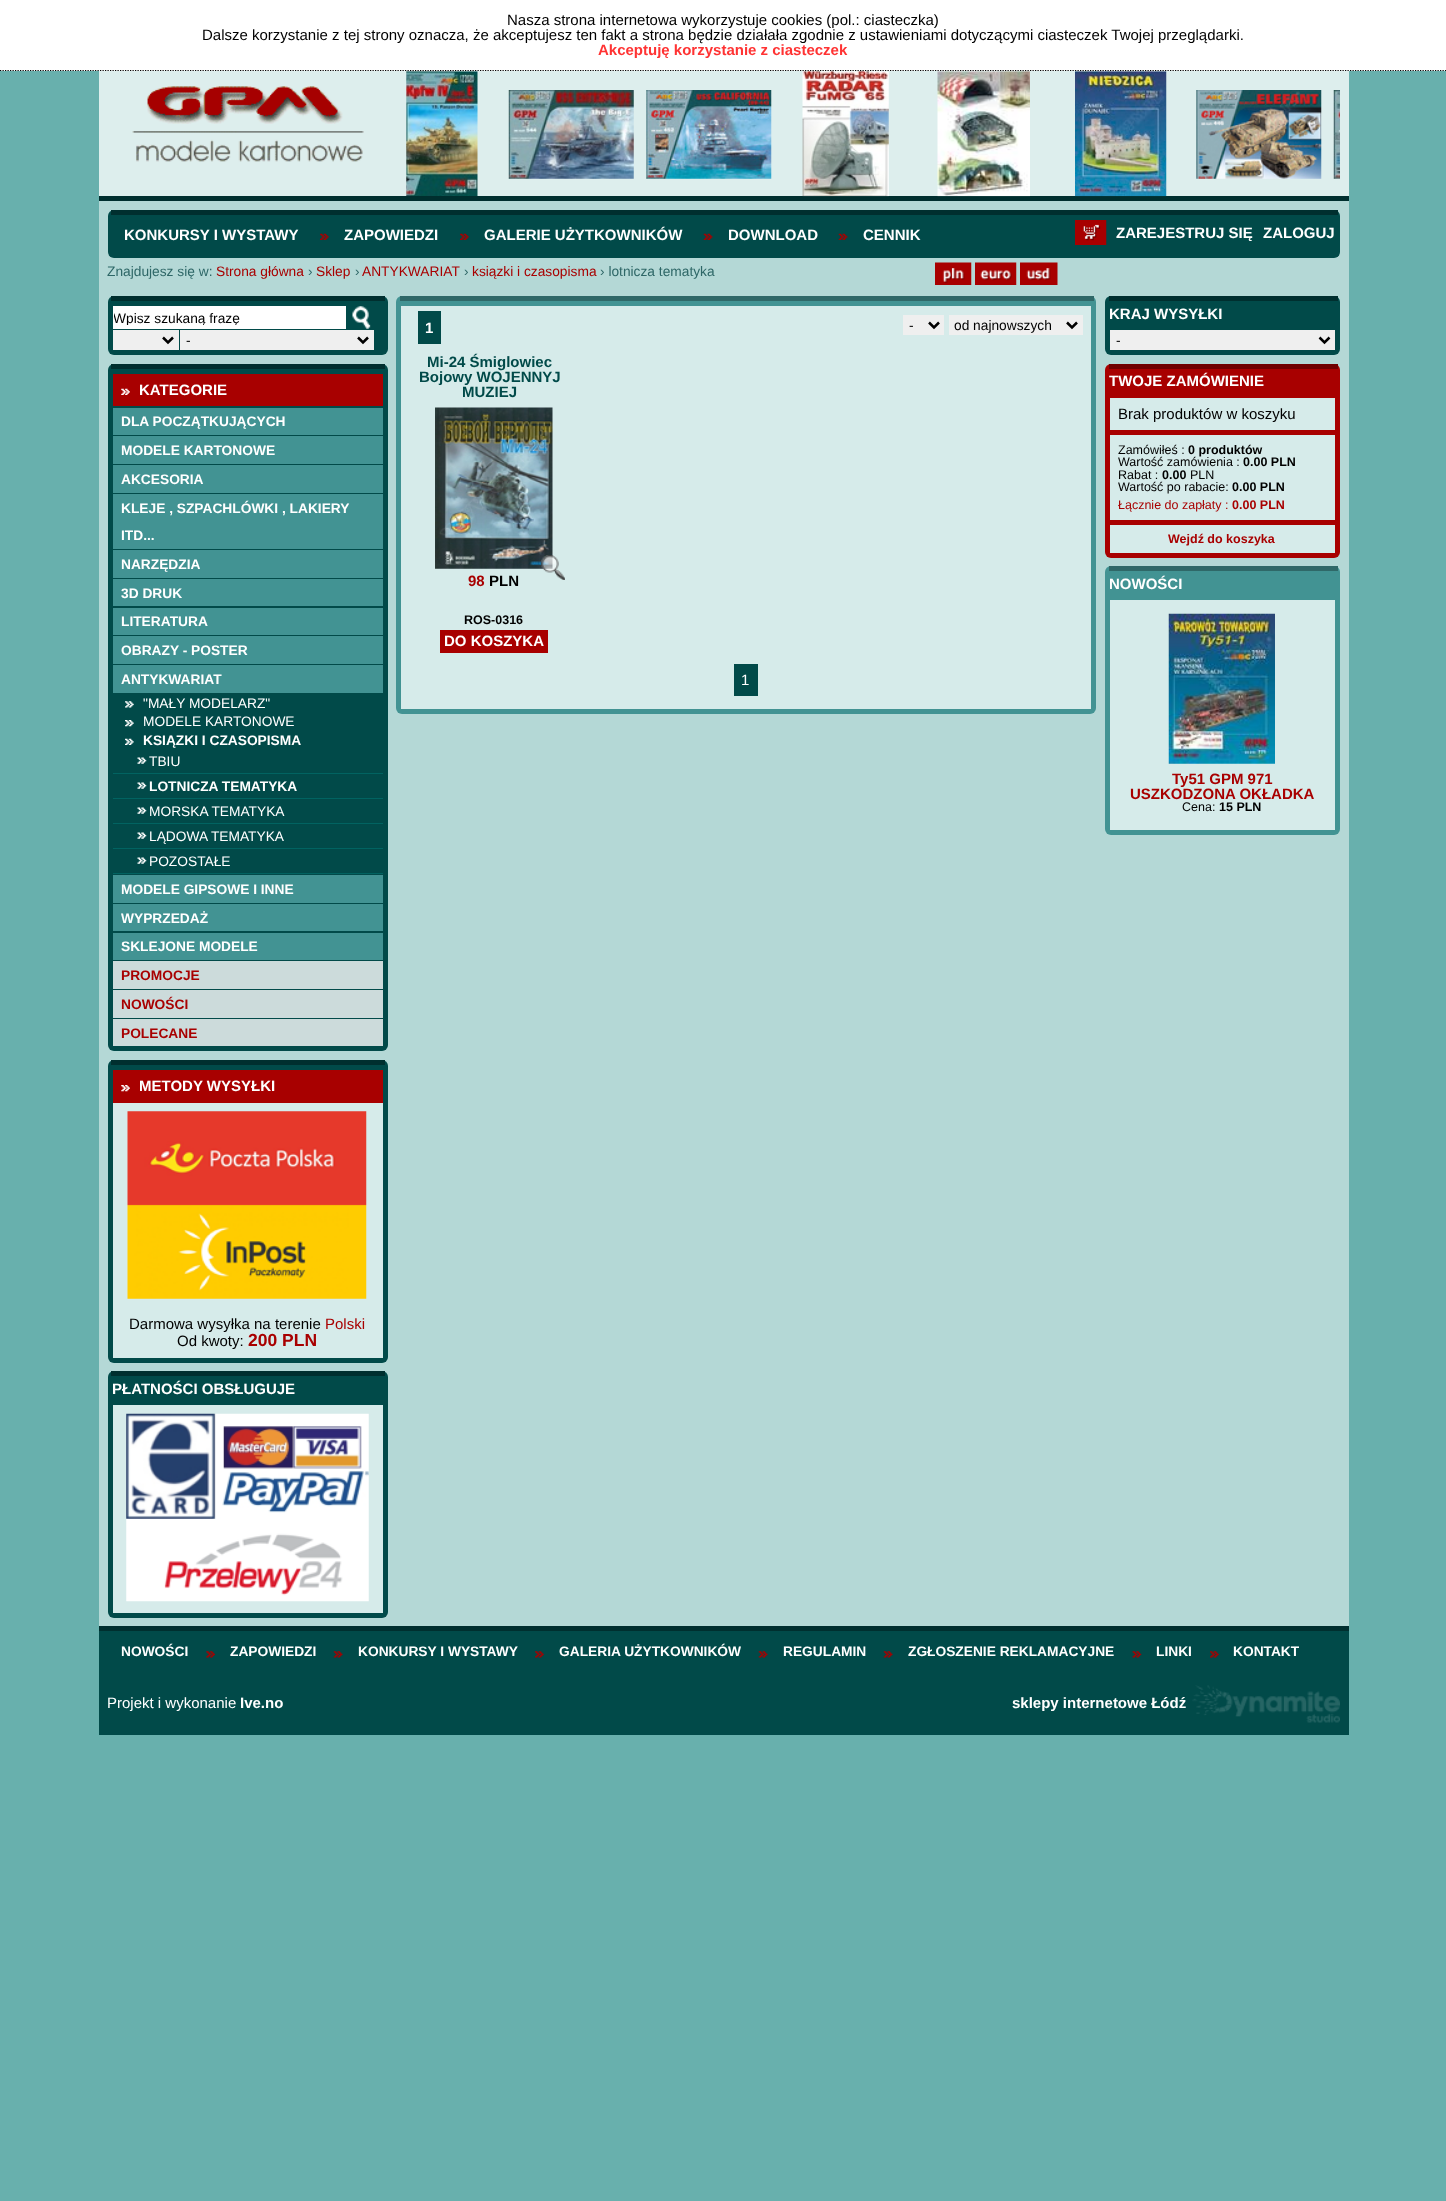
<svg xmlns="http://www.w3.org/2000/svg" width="1446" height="2201">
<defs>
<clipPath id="clip1"><rect x="114" y="310" width="231" height="15"/></clipPath>
</defs>
<rect width="100%" height="100%" fill="#68b0ad"/>
<rect width="1446" height="71" fill="#fff"/>
<path d="M0 70.5h1446" fill="none" stroke="#000" stroke-width="1.2" stroke-dasharray="1.25 1.25"/>
<text x="507" y="25" style="font-family:Liberation Sans;font-size:15px;fill:#000">Nasza strona internetowa wykorzystuje cookies (pol.: ciasteczka)</text>
<text x="202" y="40" style="font-family:Liberation Sans;font-size:15px;fill:#000">Dalsze korzystanie z tej strony oznacza, że akceptujesz ten fakt a strona będzie działała zgodnie z ustawieniami dotyczącymi ciasteczek Twojej przeglądarki.</text>
<text x="598" y="55" style="font-family:Liberation Sans;font-size:15px;font-weight:bold;fill:#f33">Akceptuję korzystanie z ciasteczek</text>
<rect x="99" y="71" width="1250" height="125" fill="#ddeeed"/>
<rect x="99" y="196" width="1250" height="5" fill="#002f2f"/>
<image x="132" y="86" width="232" height="76" href="media/1.png"/>
<image x="406" y="71" width="72" height="125" href="media/2.png"/>
<image x="508" y="90" width="126" height="89" href="media/3.png"/>
<image x="646" y="90" width="126" height="89" href="media/4.png"/>
<image x="802" y="71" width="87" height="126" href="media/5.png"/>
<image x="937" y="71" width="93" height="126" href="media/6.png"/>
<image x="1075" y="71" width="92" height="126" href="media/7.png"/>
<image x="1196" y="90" width="126" height="89" href="media/8.png"/>
<image x="1333" y="90" width="7" height="89" href="media/9.png"/>
<rect x="99" y="201" width="1250" height="1425" fill="#b4d8d6"/>
<rect x="108" y="210" width="1232" height="48" rx="6" fill="#014a49"/>
<rect x="111" y="210" width="1227" height="5" fill="#002f2f"/>
<text x="124" y="240" style="font-family:Liberation Sans;font-size:15px;font-weight:bold;fill:#fff">KONKURSY I WYSTAWY</text>
<image x="320" y="233" width="9" height="7" href="media/10.png"/>
<text x="344" y="240" style="font-family:Liberation Sans;font-size:15px;font-weight:bold;fill:#fff">ZAPOWIEDZI</text>
<image x="460" y="233" width="9" height="7" href="media/11.png"/>
<text x="484" y="240" style="font-family:Liberation Sans;font-size:15px;font-weight:bold;fill:#fff">GALERIE UŻYTKOWNIKÓW</text>
<image x="703" y="233" width="10" height="7" href="media/12.png"/>
<text x="728" y="240" style="font-family:Liberation Sans;font-size:15px;font-weight:bold;fill:#fff">DOWNLOAD</text>
<image x="838" y="233" width="10" height="7" href="media/12.png"/>
<text x="863" y="240" style="font-family:Liberation Sans;font-size:15px;font-weight:bold;fill:#fff">CENNIK</text>
<image x="1075" y="220" width="32" height="25" href="media/13.png"/>
<text x="1116" y="238" style="font-family:Liberation Sans;font-size:15px;font-weight:bold;fill:#fff">ZAREJESTRUJ SIĘ</text>
<text x="1263" y="238" style="font-family:Liberation Sans;font-size:15px;font-weight:bold;fill:#fff">ZALOGUJ</text>
<text x="107" y="276" style="font-family:Liberation Sans;font-size:13.75px;fill:#2e6767">Znajdujesz się w:</text>
<text x="216" y="276" style="font-family:Liberation Sans;font-size:13.75px;fill:#a80000">Strona główna</text>
<text x="308" y="276" style="font-family:Liberation Sans;font-size:13.75px;fill:#2e6767">›</text>
<text x="316" y="276" style="font-family:Liberation Sans;font-size:13.75px;fill:#a80000">Sklep</text>
<text x="355" y="276" style="font-family:Liberation Sans;font-size:13.75px;fill:#2e6767">›</text>
<text x="362" y="276" style="font-family:Liberation Sans;font-size:13.75px;fill:#a80000">ANTYKWARIAT</text>
<text x="464" y="276" style="font-family:Liberation Sans;font-size:13.75px;fill:#2e6767">›</text>
<text x="472" y="276" style="font-family:Liberation Sans;font-size:13.75px;fill:#a80000">ksiązki i czasopisma</text>
<text x="600" y="276" style="font-family:Liberation Sans;font-size:13.75px;fill:#2e6767">› lotnicza tematyka</text>
<image x="935" y="262" width="37" height="23" href="media/14.png"/>
<image x="975" y="262" width="42" height="23" href="media/15.png"/>
<image x="1020" y="262" width="38" height="23" href="media/16.png"/>
<rect x="108" y="296" width="280" height="59" rx="6" fill="#014a49"/>
<rect x="111" y="296" width="274" height="5" fill="#002f2f"/>
<rect x="113" y="306" width="233" height="23" fill="#fff"/>
<g clip-path="url(#clip1)">
<text x="113" y="323" style="font-family:Liberation Sans;font-size:13.75px;fill:#000">Wpisz szukaną frazę</text>
</g>
<image x="352" y="306" width="19" height="23" href="media/17.png"/>
<rect x="113" y="330" width="66" height="20" fill="#efefef"/>
<path d="M163 337.5l5 5l5-5" fill="none" stroke="#000" stroke-width="2.5"/>
<rect x="180" y="330" width="194" height="20" fill="#efefef"/>
<path d="M358 337.5l5 5l5-5" fill="none" stroke="#000" stroke-width="2.5"/>
<text x="186" y="345" style="font-family:Liberation Sans;font-size:13.75px;fill:#000">-</text>
<rect x="108" y="364" width="280" height="687" rx="6" fill="#014a49"/>
<rect x="111" y="364" width="274" height="5" fill="#002f2f"/>
<rect x="113" y="374" width="270" height="32" fill="#a80000"/>
<image x="121" y="388" width="9" height="7" href="media/18.png"/>
<text x="139" y="395" style="font-family:Liberation Sans;font-size:15px;font-weight:bold;fill:#fff">KATEGORIE</text>
<rect x="113" y="408" width="270" height="27" fill="#429393"/>
<text x="121" y="426" style="font-family:Liberation Sans;font-size:13.75px;font-weight:bold;fill:#fff">DLA POCZĄTKUJĄCYCH</text>
<rect x="113" y="436" width="270" height="28" fill="#429393"/>
<text x="121" y="455" style="font-family:Liberation Sans;font-size:13.75px;font-weight:bold;fill:#fff">MODELE KARTONOWE</text>
<rect x="113" y="465" width="270" height="28" fill="#429393"/>
<text x="121" y="484" style="font-family:Liberation Sans;font-size:13.75px;font-weight:bold;fill:#fff">AKCESORIA</text>
<rect x="113" y="494" width="270" height="55" fill="#429393"/>
<text x="121" y="513" style="font-family:Liberation Sans;font-size:13.75px;font-weight:bold;fill:#fff">KLEJE , SZPACHLÓWKI , LAKIERY</text>
<text x="121" y="540" style="font-family:Liberation Sans;font-size:13.75px;font-weight:bold;fill:#fff">ITD...</text>
<rect x="113" y="550" width="270" height="28" fill="#429393"/>
<text x="121" y="569" style="font-family:Liberation Sans;font-size:13.75px;font-weight:bold;fill:#fff">NARZĘDZIA</text>
<rect x="113" y="579" width="270" height="27" fill="#429393"/>
<text x="121" y="598" style="font-family:Liberation Sans;font-size:13.75px;font-weight:bold;fill:#fff">3D DRUK</text>
<rect x="113" y="608" width="270" height="27" fill="#429393"/>
<text x="121" y="626" style="font-family:Liberation Sans;font-size:13.75px;font-weight:bold;fill:#fff">LITERATURA</text>
<rect x="113" y="636" width="270" height="28" fill="#429393"/>
<text x="121" y="655" style="font-family:Liberation Sans;font-size:13.75px;font-weight:bold;fill:#fff">OBRAZY - POSTER</text>
<rect x="113" y="665" width="270" height="28" fill="#429393"/>
<text x="121" y="684" style="font-family:Liberation Sans;font-size:13.75px;font-weight:bold;fill:#fff">ANTYKWARIAT</text>
<image x="125" y="701" width="9" height="7" href="media/19.png"/>
<text x="143" y="708" style="font-family:Liberation Sans;font-size:13.75px;fill:#fff">"MAŁY MODELARZ"</text>
<image x="125" y="720" width="9" height="7" href="media/20.png"/>
<text x="143" y="726" style="font-family:Liberation Sans;font-size:13.75px;fill:#fff">MODELE KARTONOWE</text>
<image x="125" y="738" width="9" height="7" href="media/21.png"/>
<text x="143" y="745" style="font-family:Liberation Sans;font-size:13.75px;font-weight:bold;fill:#fff">KSIĄZKI I CZASOPISMA</text>
<image x="137" y="757" width="10" height="7" href="media/22.png"/>
<rect x="113" y="773" width="270" height="1" fill="#016361"/>
<text x="149" y="766" style="font-family:Liberation Sans;font-size:13.75px;fill:#fff">TBIU</text>
<image x="137" y="782" width="10" height="7" href="media/22.png"/>
<rect x="113" y="798" width="270" height="1" fill="#016361"/>
<text x="149" y="791" style="font-family:Liberation Sans;font-size:13.75px;font-weight:bold;fill:#fff">LOTNICZA TEMATYKA</text>
<image x="137" y="807" width="10" height="7" href="media/22.png"/>
<rect x="113" y="823" width="270" height="1" fill="#016361"/>
<text x="149" y="816" style="font-family:Liberation Sans;font-size:13.75px;fill:#fff">MORSKA TEMATYKA</text>
<image x="137" y="832" width="10" height="7" href="media/22.png"/>
<rect x="113" y="848" width="270" height="1" fill="#016361"/>
<text x="149" y="841" style="font-family:Liberation Sans;font-size:13.75px;fill:#fff">LĄDOWA TEMATYKA</text>
<image x="137" y="857" width="10" height="7" href="media/22.png"/>
<rect x="113" y="873" width="270" height="1" fill="#016361"/>
<text x="149" y="866" style="font-family:Liberation Sans;font-size:13.75px;fill:#fff">POZOSTAŁE</text>
<rect x="113" y="875" width="270" height="28" fill="#429393"/>
<text x="121" y="894" style="font-family:Liberation Sans;font-size:13.75px;font-weight:bold;fill:#fff">MODELE GIPSOWE I INNE</text>
<rect x="113" y="904" width="270" height="27" fill="#429393"/>
<text x="121" y="923" style="font-family:Liberation Sans;font-size:13.75px;font-weight:bold;fill:#fff">WYPRZEDAŻ</text>
<rect x="113" y="933" width="270" height="27" fill="#429393"/>
<text x="121" y="951" style="font-family:Liberation Sans;font-size:13.75px;font-weight:bold;fill:#fff">SKLEJONE MODELE</text>
<rect x="113" y="961" width="270" height="28" fill="#ccdbdb"/>
<text x="121" y="980" style="font-family:Liberation Sans;font-size:13.75px;font-weight:bold;fill:#a80000">PROMOCJE</text>
<rect x="113" y="990" width="270" height="28" fill="#ccdbdb"/>
<text x="121" y="1009" style="font-family:Liberation Sans;font-size:13.75px;font-weight:bold;fill:#a80000">NOWOŚCI</text>
<rect x="113" y="1019" width="270" height="27" fill="#ccdbdb"/>
<text x="121" y="1038" style="font-family:Liberation Sans;font-size:13.75px;font-weight:bold;fill:#a80000">POLECANE</text>
<rect x="108" y="1060" width="280" height="303" rx="6" fill="#014a49"/>
<rect x="111" y="1060" width="274" height="5" fill="#002f2f"/>
<rect x="113" y="1070" width="270" height="33" fill="#a80000"/>
<image x="121" y="1085" width="9" height="7" href="media/23.png"/>
<text x="139" y="1091" style="font-family:Liberation Sans;font-size:15px;font-weight:bold;fill:#fff">METODY WYSYŁKI</text>
<rect x="113" y="1103" width="270" height="255" fill="#d6ebea"/>
<image x="127" y="1111" width="240" height="188" href="media/24.png"/>
<text x="129" y="1329" style="font-family:Liberation Sans;font-size:15px;fill:#000">Darmowa wysyłka na terenie</text>
<text x="325" y="1329" style="font-family:Liberation Sans;font-size:15px;fill:#a80000">Polski</text>
<text x="177" y="1346" style="font-family:Liberation Sans;font-size:15px;fill:#000">Od kwoty:</text>
<text x="248" y="1346" style="font-family:Liberation Sans;font-size:17.5px;font-weight:bold;fill:#a80000">200 PLN</text>
<rect x="108" y="1371" width="280" height="247" rx="6" fill="#014a49"/>
<rect x="111" y="1371" width="274" height="5" fill="#002f2f"/>
<text x="112" y="1394" style="font-family:Liberation Sans;font-size:15px;font-weight:bold;fill:#fff">PŁATNOŚCI OBSŁUGUJE</text>
<rect x="113" y="1405" width="270" height="208" fill="#d6ebea"/>
<image x="126" y="1413" width="243" height="189" href="media/25.png"/>
<rect x="396" y="296" width="700" height="418" rx="6" fill="#429393"/>
<rect x="400" y="296" width="694" height="5" fill="#2f6868"/>
<rect x="401" y="306" width="690" height="403" fill="#d6ebea"/>
<rect x="418" y="311" width="23" height="33" fill="#014a49"/>
<text x="425" y="333" style="font-family:Liberation Sans;font-size:15px;font-weight:bold;fill:#fff">1</text>
<rect x="903" y="315" width="41" height="20" fill="#efefef"/>
<path d="M929 322.5l5 5l5-5" fill="none" stroke="#000" stroke-width="2.5"/>
<text x="909" y="330" style="font-family:Liberation Sans;font-size:13.75px;fill:#000">-</text>
<rect x="949" y="315" width="134" height="20" fill="#efefef"/>
<path d="M1067 322.5l5 5l5-5" fill="none" stroke="#000" stroke-width="2.5"/>
<text x="954" y="330" style="font-family:Liberation Sans;font-size:13.75px;fill:#000">od najnowszych</text>
<text x="427" y="367" style="font-family:Liberation Sans;font-size:15px;font-weight:bold;fill:#014a49">Mi-24 Śmiglowiec</text>
<text x="419" y="382" style="font-family:Liberation Sans;font-size:15px;font-weight:bold;fill:#014a49">Bojowy WOJENNYJ</text>
<text x="462" y="397" style="font-family:Liberation Sans;font-size:15px;font-weight:bold;fill:#014a49">MUZIEJ</text>
<image x="435" y="407" width="118" height="162" href="media/26.png"/>
<text x="468" y="586" style="font-family:Liberation Sans;font-size:15px;font-weight:bold;fill:#a80000">98</text>
<text x="489" y="586" style="font-family:Liberation Sans;font-size:15px;font-weight:bold;fill:#000">PLN</text>
<image x="541" y="555" width="24" height="25" href="media/27.png"/>
<text x="464" y="624" style="font-family:Liberation Sans;font-size:12.5px;font-weight:bold;fill:#000">ROS-0316</text>
<rect x="440" y="630" width="108" height="23" fill="#a80000"/>
<text x="444" y="646" style="font-family:Liberation Sans;font-size:15px;font-weight:bold;fill:#fff">DO KOSZYKA</text>
<rect x="734" y="664" width="24" height="32" fill="#014a49"/>
<text x="741" y="685" style="font-family:Liberation Sans;font-size:15px;fill:#fff">1</text>
<rect x="1105" y="296" width="235" height="59" rx="6" fill="#014a49"/>
<rect x="1109" y="296" width="229" height="5" fill="#002f2f"/>
<text x="1109" y="319" style="font-family:Liberation Sans;font-size:15px;font-weight:bold;fill:#fff">KRAJ WYSYŁKI</text>
<rect x="1110" y="330" width="225" height="20" fill="#efefef"/>
<path d="M1319.5 337.5l5 5l5-5" fill="none" stroke="#000" stroke-width="2.5"/>
<text x="1116" y="345" style="font-family:Liberation Sans;font-size:13.75px;fill:#000">-</text>
<rect x="1105" y="364" width="235" height="194" rx="6" fill="#a80000"/>
<rect x="1109" y="364" width="229" height="5" fill="#6f0000"/>
<text x="1109" y="386" style="font-family:Liberation Sans;font-size:15px;font-weight:bold;fill:#fff">TWOJE ZAMÓWIENIE</text>
<rect x="1110" y="398" width="225" height="32" fill="#d6ebea"/>
<text x="1118" y="419" style="font-family:Liberation Sans;font-size:15px;fill:#000">Brak produktów w koszyku</text>
<rect x="1110" y="435" width="225" height="85" fill="#d6ebea"/>
<text x="1118" y="454" style="font-family:Liberation Sans;font-size:12.5px;fill:#000">Zamówiłeś :</text>
<text x="1188" y="454" style="font-family:Liberation Sans;font-size:12.5px;font-weight:bold;fill:#000">0 produktów</text>
<text x="1118" y="466" style="font-family:Liberation Sans;font-size:12.5px;fill:#000">Wartość zamówienia :</text>
<text x="1243" y="466" style="font-family:Liberation Sans;font-size:12.5px;font-weight:bold;fill:#000">0.00 PLN</text>
<text x="1118" y="479" style="font-family:Liberation Sans;font-size:12.5px;fill:#000">Rabat :</text>
<text x="1162" y="479" style="font-family:Liberation Sans;font-size:12.5px;font-weight:bold;fill:#000">0.00</text>
<text x="1190" y="479" style="font-family:Liberation Sans;font-size:12.5px;fill:#000">PLN</text>
<text x="1118" y="491" style="font-family:Liberation Sans;font-size:12.5px;fill:#000">Wartość po rabacie:</text>
<text x="1232" y="491" style="font-family:Liberation Sans;font-size:12.5px;font-weight:bold;fill:#000">0.00 PLN</text>
<text x="1118" y="509" style="font-family:Liberation Sans;font-size:12.5px;fill:#a80000">Łącznie do zapłaty :</text>
<text x="1232" y="509" style="font-family:Liberation Sans;font-size:12.5px;font-weight:bold;fill:#a80000">0.00 PLN</text>
<rect x="1110" y="525" width="225" height="28" fill="#d6ebea"/>
<text x="1168" y="543" style="font-family:Liberation Sans;font-size:12.5px;font-weight:bold;fill:#a80000">Wejdź do koszyka</text>
<rect x="1105" y="566" width="235" height="269" rx="6" fill="#429393"/>
<rect x="1109" y="566" width="229" height="5" fill="#2f6868"/>
<text x="1109" y="589" style="font-family:Liberation Sans;font-size:15px;font-weight:bold;fill:#fff">NOWOŚCI</text>
<rect x="1110" y="600" width="225" height="230" fill="#d6ebea"/>
<image x="1168" y="613" width="107" height="151" href="media/28.png"/>
<text x="1172" y="784" style="font-family:Liberation Sans;font-size:15px;font-weight:bold;fill:#a80000">Ty51 GPM 971</text>
<text x="1130" y="799" style="font-family:Liberation Sans;font-size:15px;font-weight:bold;fill:#a80000">USZKODZONA OKŁADKA</text>
<text x="1182" y="811" style="font-family:Liberation Sans;font-size:12.5px;fill:#000">Cena:</text>
<text x="1219" y="811" style="font-family:Liberation Sans;font-size:12.5px;font-weight:bold;fill:#000">15 PLN</text>
<rect x="99" y="1631" width="1250" height="104" fill="#014a49"/>
<rect x="99" y="1626" width="1250" height="5" fill="#002f2f"/>
<text x="121" y="1656" style="font-family:Liberation Sans;font-size:13.75px;font-weight:bold;fill:#fff">NOWOŚCI</text>
<image x="206" y="1651" width="9" height="7" href="media/29.png"/>
<text x="230" y="1656" style="font-family:Liberation Sans;font-size:13.75px;font-weight:bold;fill:#fff">ZAPOWIEDZI</text>
<image x="333" y="1651" width="10" height="7" href="media/30.png"/>
<text x="358" y="1656" style="font-family:Liberation Sans;font-size:13.75px;font-weight:bold;fill:#fff">KONKURSY I WYSTAWY</text>
<image x="535" y="1651" width="9" height="7" href="media/31.png"/>
<text x="559" y="1656" style="font-family:Liberation Sans;font-size:13.75px;font-weight:bold;fill:#fff">GALERIA UŻYTKOWNIKÓW</text>
<image x="758" y="1651" width="10" height="7" href="media/32.png"/>
<text x="783" y="1656" style="font-family:Liberation Sans;font-size:13.75px;font-weight:bold;fill:#fff">REGULAMIN</text>
<image x="883" y="1651" width="10" height="7" href="media/32.png"/>
<text x="908" y="1656" style="font-family:Liberation Sans;font-size:13.75px;font-weight:bold;fill:#fff">ZGŁOSZENIE REKLAMACYJNE</text>
<image x="1132" y="1651" width="10" height="7" href="media/33.png"/>
<text x="1156" y="1656" style="font-family:Liberation Sans;font-size:13.75px;font-weight:bold;fill:#fff">LINKI</text>
<image x="1210" y="1651" width="9" height="7" href="media/34.png"/>
<text x="1233" y="1656" style="font-family:Liberation Sans;font-size:13.75px;font-weight:bold;fill:#fff">KONTAKT</text>
<text x="107" y="1708" style="font-family:Liberation Sans;font-size:15px;fill:#fff">Projekt i wykonanie</text>
<text x="240" y="1708" style="font-family:Liberation Sans;font-size:15px;font-weight:bold;fill:#fff">Ive.no</text>
<text x="1012" y="1708" style="font-family:Liberation Sans;font-size:15px;font-weight:bold;fill:#fff">sklepy internetowe Łódź</text>
<image x="1192" y="1685" width="148" height="38" href="media/35.png"/>
</svg>
